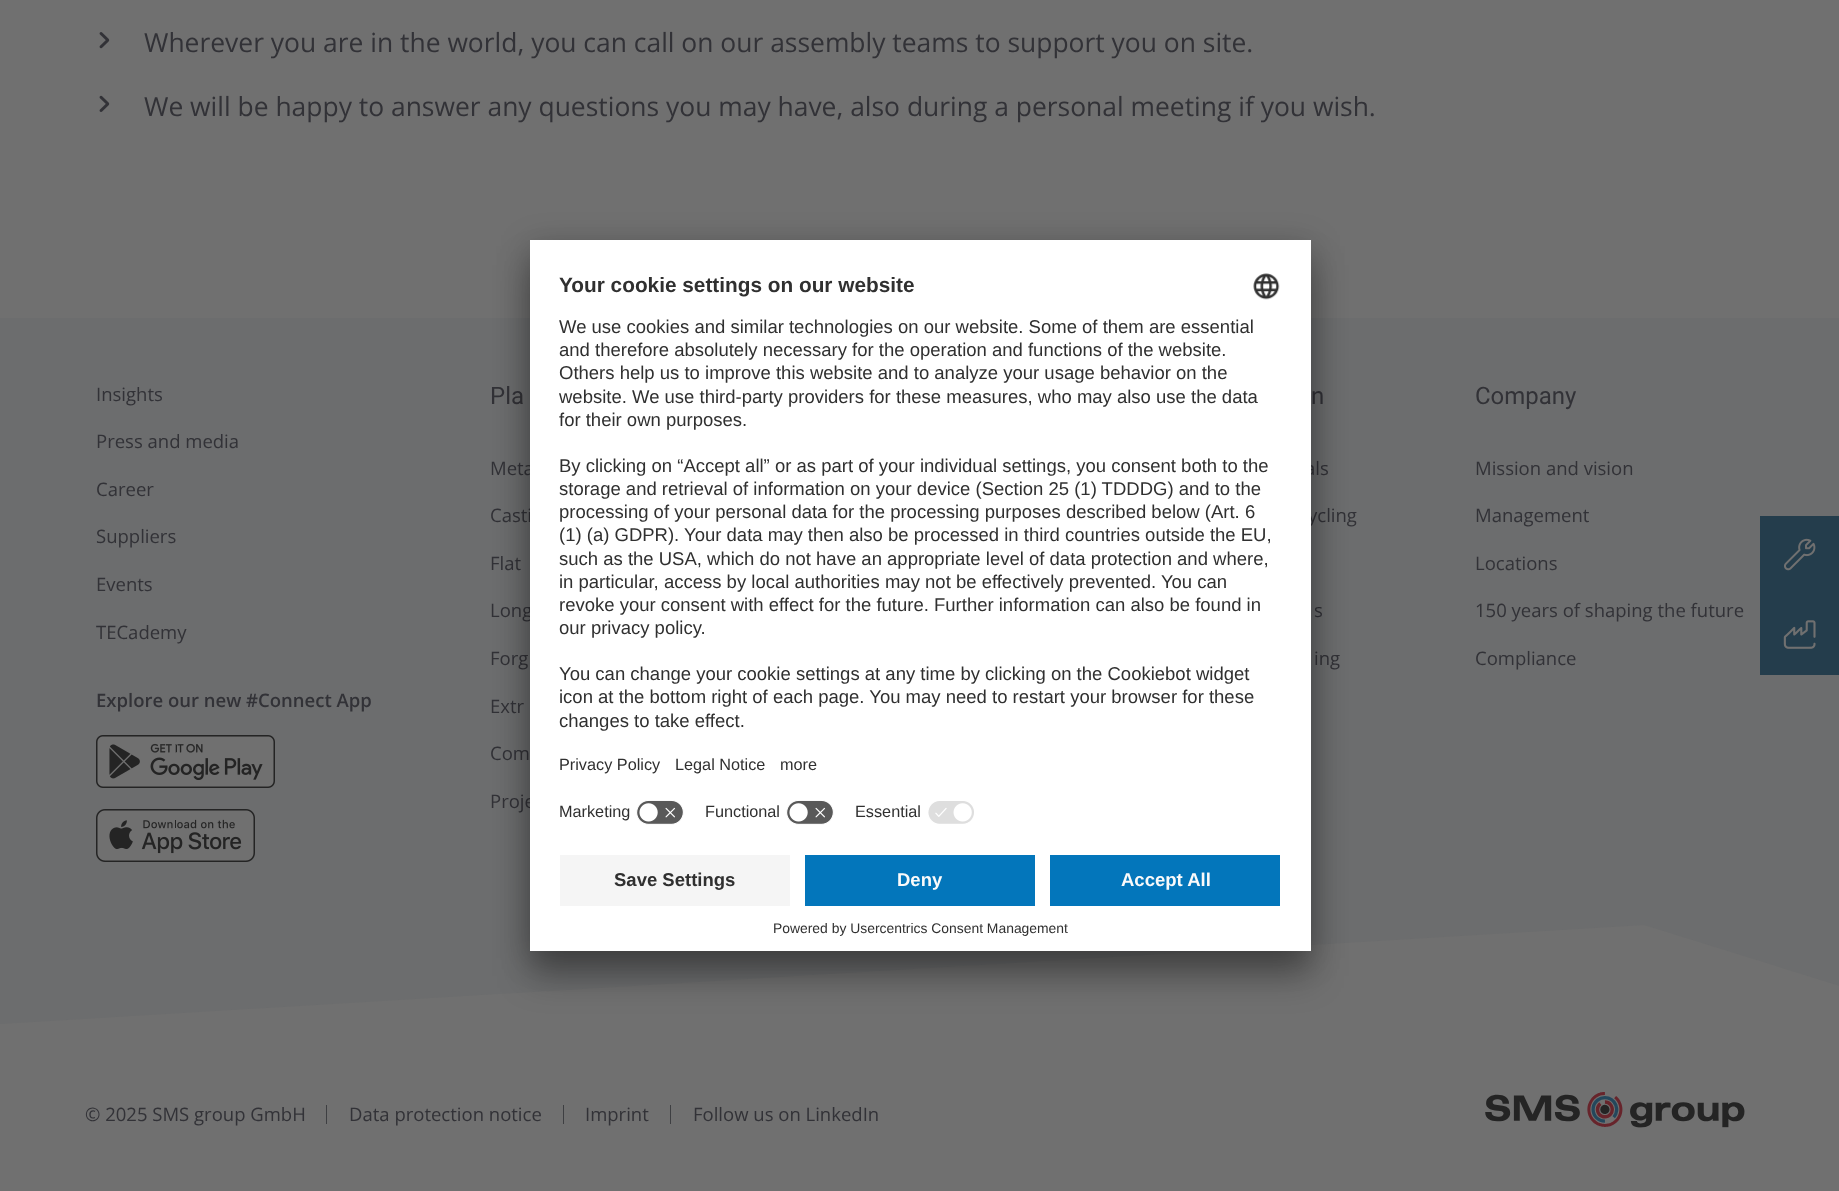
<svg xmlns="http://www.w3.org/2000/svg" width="1839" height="1191">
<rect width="100%" height="100%" fill="#707070"/>
<image x="99" y="32" width="11" height="17" href="media/1.png"/>
<text x="144" y="52" style="font-family:Open Sans;font-size:26.45px;fill:#323237">Wherever you are in the world, you can call on our assembly teams to support you on site.</text>
<image x="99" y="95" width="11" height="17" href="media/2.png"/>
<text x="144" y="116" style="font-family:Open Sans;font-size:26.45px;fill:#323237">We will be happy to answer any questions you may have, also during a personal meeting if you wish.</text>
<rect y="318" width="1839" height="706" fill="#6c6d6e"/>
<text x="96" y="401" style="font-family:Open Sans;font-size:18.5px;fill:#323237">Insights</text>
<text x="96" y="448" style="font-family:Open Sans;font-size:18.5px;fill:#323237">Press and media</text>
<text x="96" y="496" style="font-family:Open Sans;font-size:18.5px;fill:#323237">Career</text>
<text x="96" y="543" style="font-family:Open Sans;font-size:18.5px;fill:#323237">Suppliers</text>
<text x="96" y="591" style="font-family:Open Sans;font-size:18.5px;fill:#323237">Events</text>
<text x="96" y="639" style="font-family:Open Sans;font-size:18.5px;fill:#323237">TECademy</text>
<text x="96" y="707" style="font-family:Open Sans;font-size:18.5px;font-weight:600;fill:#323237">Explore our new #Connect App</text>
<image x="96" y="735" width="179" height="53" href="media/3.png"/>
<image x="96" y="809" width="159" height="53" href="media/4.png"/>
<text x="490" y="404" style="font-family:Roboto;font-size:24px;fill:#323237">Pla</text>
<text x="490" y="475" style="font-family:Open Sans;font-size:18.5px;fill:#323237">Meta</text>
<text x="490" y="522" style="font-family:Open Sans;font-size:18.5px;fill:#323237">Casti</text>
<text x="490" y="570" style="font-family:Open Sans;font-size:18.5px;fill:#323237">Flat</text>
<text x="490" y="617" style="font-family:Open Sans;font-size:18.5px;fill:#323237">Long</text>
<text x="490" y="665" style="font-family:Open Sans;font-size:18.5px;fill:#323237">Forg</text>
<text x="490" y="713" style="font-family:Open Sans;font-size:18.5px;fill:#323237">Extr</text>
<text x="490" y="760" style="font-family:Open Sans;font-size:18.5px;fill:#323237">Com</text>
<text x="490" y="808" style="font-family:Open Sans;font-size:18.5px;fill:#323237">Proje</text>
<text x="1311" y="404" style="font-family:Roboto;font-size:24px;fill:#323237">n</text>
<text x="1305" y="475" style="font-family:Open Sans;font-size:18.5px;fill:#323237">als</text>
<text x="1308" y="522" style="font-family:Open Sans;font-size:18.5px;fill:#323237">ycling</text>
<text x="1314" y="617" style="font-family:Open Sans;font-size:18.5px;fill:#323237">s</text>
<text x="1314" y="665" style="font-family:Open Sans;font-size:18.5px;fill:#323237">ing</text>
<text x="1475" y="404" style="font-family:Roboto;font-size:24px;fill:#323237">Company</text>
<text x="1475" y="475" style="font-family:Open Sans;font-size:18.5px;fill:#323237">Mission and vision</text>
<text x="1475" y="522" style="font-family:Open Sans;font-size:18.5px;fill:#323237">Management</text>
<text x="1475" y="570" style="font-family:Open Sans;font-size:18.5px;fill:#323237">Locations</text>
<text x="1475" y="617" style="font-family:Open Sans;font-size:18.5px;fill:#323237">150 years of shaping the future</text>
<text x="1475" y="665" style="font-family:Open Sans;font-size:18.5px;fill:#323237">Compliance</text>
<path d="M0 1024l1644-99l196 61v205h-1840z" fill="#707070"/>
<text x="85" y="1121" style="font-family:Open Sans;font-size:18.5px;fill:#323237">© 2025 SMS group GmbH</text>
<rect x="326" y="1105" width="1" height="19" fill="#3e3f42"/>
<text x="349" y="1121" style="font-family:Open Sans;font-size:18.5px;fill:#323237">Data protection notice</text>
<rect x="563" y="1105" width="1" height="19" fill="#3e3f42"/>
<text x="585" y="1121" style="font-family:Open Sans;font-size:18.5px;fill:#323237">Imprint</text>
<rect x="670" y="1105" width="1" height="19" fill="#3e3f42"/>
<text x="693" y="1121" style="font-family:Open Sans;font-size:18.5px;fill:#323237">Follow us on LinkedIn</text>
<image x="1485" y="1092" width="260" height="36" href="media/5.png"/>
<rect x="1760" y="516" width="79" height="159" fill="#243d4c"/>
<image x="1784" y="538" width="32" height="33" href="media/6.png"/>
<image x="1783" y="620" width="33" height="29" href="media/7.png"/>
<rect x="530" y="265" width="781" height="711" fill="#0000004d" filter="blur(17.5px)"/>
<rect x="530" y="246" width="781" height="712" fill="#00000038" filter="blur(16px)"/>
<rect x="530" y="240" width="781" height="711" fill="#fff"/>
<text x="559" y="292" style="font-family:Liberation Sans;font-size:20.8px;font-weight:bold;fill:#303030">Your cookie settings on our website</text>
<image x="1253" y="273" width="27" height="27" href="media/8.png"/>
<text x="559" y="333" style="font-family:Liberation Sans;font-size:18.5px;fill:#303030">We use cookies and similar technologies on our website. Some of them are essential</text>
<text x="559" y="356" style="font-family:Liberation Sans;font-size:18.5px;fill:#303030">and therefore absolutely necessary for the operation and functions of the website.</text>
<text x="559" y="379" style="font-family:Liberation Sans;font-size:18.5px;fill:#303030">Others help us to improve this website and to analyze your usage behavior on the</text>
<text x="559" y="403" style="font-family:Liberation Sans;font-size:18.5px;fill:#303030">website. We use third-party providers for these measures, who may also use the data</text>
<text x="559" y="426" style="font-family:Liberation Sans;font-size:18.5px;fill:#303030">for their own purposes.</text>
<text x="559" y="472" style="font-family:Liberation Sans;font-size:18.5px;fill:#303030">By clicking on “Accept all” or as part of your individual settings, you consent both to the</text>
<text x="559" y="495" style="font-family:Liberation Sans;font-size:18.5px;fill:#303030">storage and retrieval of information on your device (Section 25 (1) TDDDG) and to the</text>
<text x="559" y="518" style="font-family:Liberation Sans;font-size:18.5px;fill:#303030">processing of your personal data for the processing purposes described below (Art. 6</text>
<text x="559" y="541" style="font-family:Liberation Sans;font-size:18.5px;fill:#303030">(1) (a) GDPR). Your data may then also be processed in third countries outside the EU,</text>
<text x="559" y="565" style="font-family:Liberation Sans;font-size:18.5px;fill:#303030">such as the USA, which do not have an appropriate level of data protection and where,</text>
<text x="559" y="588" style="font-family:Liberation Sans;font-size:18.5px;fill:#303030">in particular, access by local authorities may not be effectively prevented. You can</text>
<text x="559" y="611" style="font-family:Liberation Sans;font-size:18.5px;fill:#303030">revoke your consent with effect for the future. Further information can also be found in</text>
<text x="559" y="634" style="font-family:Liberation Sans;font-size:18.5px;fill:#303030">our privacy policy.</text>
<text x="559" y="680" style="font-family:Liberation Sans;font-size:18.5px;fill:#303030">You can change your cookie settings at any time by clicking on the Cookiebot widget</text>
<text x="559" y="703" style="font-family:Liberation Sans;font-size:18.5px;fill:#303030">icon at the bottom right of each page. You may need to restart your browser for these</text>
<text x="559" y="727" style="font-family:Liberation Sans;font-size:18.5px;fill:#303030">changes to take effect.</text>
<text x="559" y="770" style="font-family:Liberation Sans;font-size:16.25px;fill:#303030">Privacy Policy</text>
<text x="675" y="770" style="font-family:Liberation Sans;font-size:16.25px;fill:#303030">Legal Notice</text>
<text x="780" y="770" style="font-family:Liberation Sans;font-size:16.25px;fill:#303030">more</text>
<text x="559" y="817" style="font-family:Liberation Sans;font-size:16.25px;fill:#303030">Marketing</text>
<image x="636" y="800" width="48" height="25" href="media/9.png"/>
<text x="705" y="817" style="font-family:Liberation Sans;font-size:16.25px;fill:#303030">Functional</text>
<image x="786" y="800" width="48" height="25" href="media/9.png"/>
<text x="855" y="817" style="font-family:Liberation Sans;font-size:16.25px;fill:#303030">Essential</text>
<image x="928" y="801" width="46" height="23" href="media/10.png"/>
<rect x="560" y="855" width="230" height="51" fill="#f5f5f5"/>
<text x="614" y="886" style="font-family:Liberation Sans;font-size:18.5px;font-weight:bold;fill:#303030">Save Settings</text>
<rect x="805" y="855" width="230" height="51" fill="#0376bb"/>
<text x="897" y="886" style="font-family:Liberation Sans;font-size:18.5px;font-weight:bold;fill:#fafafa">Deny</text>
<rect x="1050" y="855" width="230" height="51" fill="#0376bb"/>
<text x="1121" y="886" style="font-family:Liberation Sans;font-size:18.5px;font-weight:bold;fill:#fafafa">Accept All</text>
<text x="773" y="933" style="font-family:Liberation Sans;font-size:13.9px;fill:#303030">Powered by Usercentrics Consent Management</text>
</svg>
